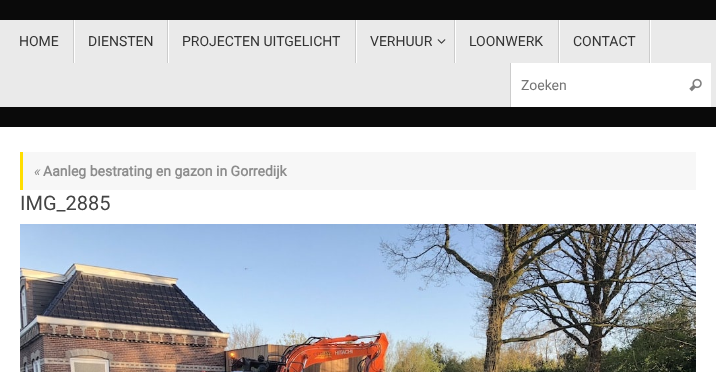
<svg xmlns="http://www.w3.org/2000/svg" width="716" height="372">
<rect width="100%" height="100%" fill="#0a0a0a"/>
<rect y="20" width="716" height="87" fill="#eaeaea"/>
<rect x="74" y="20" width="1" height="43" fill="#fff"/>
<rect x="73" y="20" width="1" height="43" fill="#ccc"/>
<text x="19" y="46" style="font-family:Roboto;font-size:14px;fill:#333">HOME</text>
<rect x="168" y="20" width="1" height="43" fill="#fff"/>
<rect x="167" y="20" width="1" height="43" fill="#ccc"/>
<text x="88" y="46" style="font-family:Roboto;font-size:14px;fill:#333">DIENSTEN</text>
<rect x="356" y="20" width="1" height="43" fill="#fff"/>
<rect x="355" y="20" width="1" height="43" fill="#ccc"/>
<text x="182" y="46" style="font-family:Roboto;font-size:14px;fill:#333">PROJECTEN UITGELICHT</text>
<rect x="455" y="20" width="1" height="43" fill="#fff"/>
<rect x="454" y="20" width="1" height="43" fill="#ccc"/>
<text x="370" y="46" style="font-family:Roboto;font-size:14px;fill:#333">VERHUUR</text>
<image x="437" y="39" width="9" height="5" href="media/1.png"/>
<rect x="559" y="20" width="1" height="43" fill="#fff"/>
<rect x="558" y="20" width="1" height="43" fill="#ccc"/>
<text x="469" y="46" style="font-family:Roboto;font-size:14px;fill:#333">LOONWERK</text>
<rect x="650" y="20" width="1" height="43" fill="#fff"/>
<rect x="649" y="20" width="1" height="43" fill="#ccc"/>
<text x="573" y="46" style="font-family:Roboto;font-size:14px;fill:#333">CONTACT</text>
<rect x="511" y="63" width="200" height="44" fill="#fff"/>
<rect x="510" y="63" width="1" height="44" fill="#ccc"/>
<text x="521" y="90" style="font-family:Roboto;font-size:14px;fill:#757575">Zoeken</text>
<image x="689" y="78" width="13" height="14" href="media/2.png"/>
<rect y="127" width="716" height="245" fill="#fff"/>
<rect x="23" y="152" width="673" height="38" fill="#f7f7f7"/>
<rect x="20" y="152" width="3" height="38" fill="#ffde00"/>
<text x="33" y="176" style="font-family:Roboto;font-size:14px;font-style:italic;fill:#8c8c8c">«</text>
<text x="43" y="176" style="font-family:Roboto;font-size:14px;font-weight:bold;fill:#8c8c8c">Aanleg bestrating en gazon in Gorredijk</text>
<text x="20" y="210" style="font-family:Roboto;font-size:20px;fill:#444">IMG_2885</text>
<image x="20" y="224" width="676" height="148" href="media/3.png"/>
</svg>
